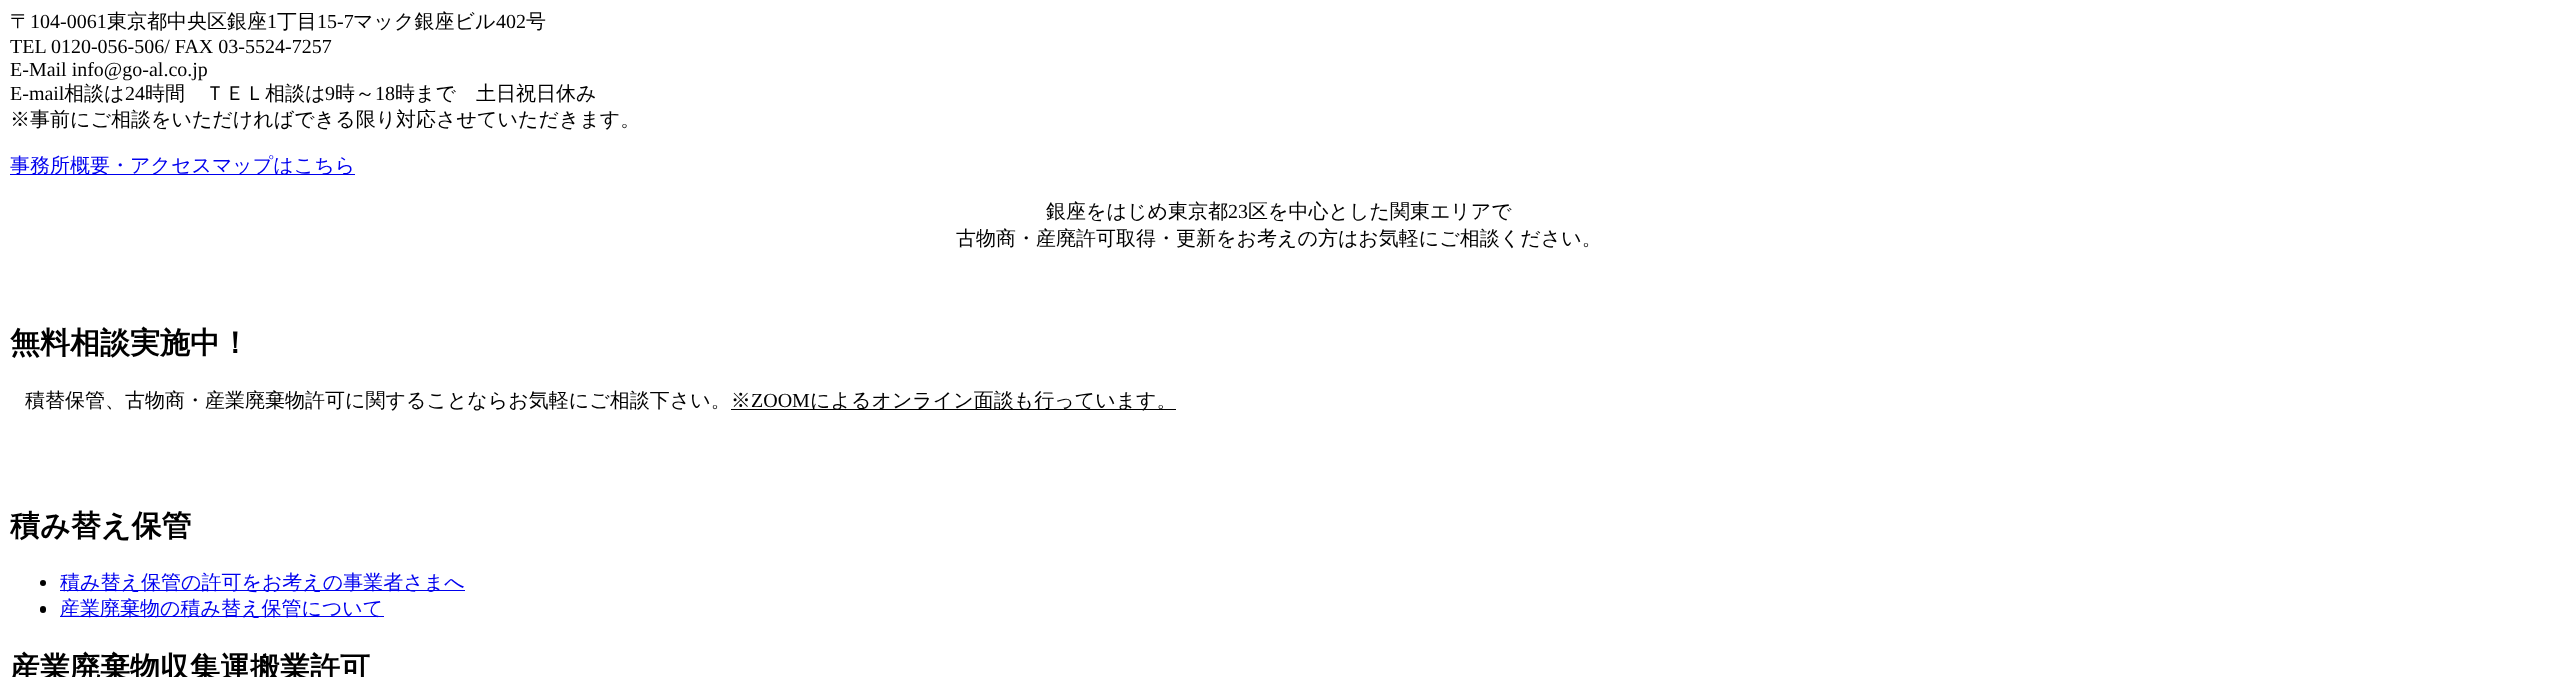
<svg xmlns="http://www.w3.org/2000/svg" width="2557" height="677">
<rect width="100%" height="100%" fill="#fff"/>
<text x="10" y="28" style="font-family:WenQuanYi Zen Hei;font-size:20px;font-weight:500;fill:#000">〒</text>
<text x="30" y="28" style="font-family:Liberation Serif;font-size:20px;fill:#000">104-0061</text>
<text x="107" y="28" style="font-family:WenQuanYi Zen Hei;font-size:20px;font-weight:500;fill:#000">東京都中央区銀座</text>
<text x="267" y="28" style="font-family:Liberation Serif;font-size:20px;fill:#000">1</text>
<text x="277" y="28" style="font-family:WenQuanYi Zen Hei;font-size:20px;font-weight:500;fill:#000">丁目</text>
<text x="317" y="28" style="font-family:Liberation Serif;font-size:20px;fill:#000">15-7</text>
<text x="353" y="28" style="font-family:WenQuanYi Zen Hei;font-size:20px;font-weight:500;fill:#000">マック銀座ビル</text>
<text x="496" y="28" style="font-family:Liberation Serif;font-size:20px;fill:#000">402</text>
<text x="526" y="28" style="font-family:WenQuanYi Zen Hei;font-size:20px;font-weight:500;fill:#000">号</text>
<text x="10" y="53" style="font-family:Liberation Serif;font-size:20px;fill:#000">TEL 0120-056-506/ FAX 03-5524-7257</text>
<text x="10" y="76" style="font-family:Liberation Serif;font-size:20px;fill:#000">E-Mail info@go-al.co.jp</text>
<text x="10" y="100" style="font-family:Liberation Serif;font-size:20px;fill:#000">E-mail</text>
<text x="64" y="100" style="font-family:WenQuanYi Zen Hei;font-size:20px;font-weight:500;fill:#000">相談は</text>
<text x="125" y="100" style="font-family:Liberation Serif;font-size:20px;fill:#000">24</text>
<text x="145" y="100" style="font-family:WenQuanYi Zen Hei;font-size:20px;font-weight:500;fill:#000">時間　ＴＥＬ相談は</text>
<text x="325" y="100" style="font-family:Liberation Serif;font-size:20px;fill:#000">9</text>
<text x="335" y="100" style="font-family:WenQuanYi Zen Hei;font-size:20px;font-weight:500;fill:#000">時～</text>
<text x="375" y="100" style="font-family:Liberation Serif;font-size:20px;fill:#000">18</text>
<text x="395" y="100" style="font-family:WenQuanYi Zen Hei;font-size:20px;font-weight:500;fill:#000">時まで　土日祝日休み</text>
<text x="10" y="126" style="font-family:WenQuanYi Zen Hei;font-size:20px;font-weight:500;fill:#000">※事前にご相談をいただければできる限り対応させていただきます。</text>
<rect x="10" y="174" width="345" height="1" fill="#00e"/>
<text x="10" y="172" style="font-family:WenQuanYi Zen Hei;font-size:20px;font-weight:500;fill:#00e">事務所概要・アクセスマップはこちら</text>
<text x="1046" y="218" style="font-family:WenQuanYi Zen Hei;font-size:20px;font-weight:500;fill:#000">銀座をはじめ東京都</text>
<text x="1228" y="218" style="font-family:Liberation Serif;font-size:20px;fill:#000">23</text>
<text x="1248" y="218" style="font-family:WenQuanYi Zen Hei;font-size:20px;font-weight:500;fill:#000">区を中心とした関東エリアで</text>
<text x="956" y="245" style="font-family:WenQuanYi Zen Hei;font-size:20px;font-weight:500;fill:#000">古物商・産廃許可取得・更新をお考えの方はお気軽にご相談ください。</text>
<text x="10" y="353" style="font-family:WenQuanYi Zen Hei;font-size:30px;font-weight:bold;fill:#000">無料相談実施中！</text>
<text x="25" y="407" style="font-family:WenQuanYi Zen Hei;font-size:20px;font-weight:500;fill:#000">積替保管、古物商・産業廃棄物許可に関することならお気軽にご相談下さい。※</text>
<text x="751" y="407" style="font-family:Liberation Serif;font-size:20px;fill:#000">ZOOM</text>
<rect x="731" y="409" width="445" height="1" fill="#000"/>
<text x="810" y="407" style="font-family:WenQuanYi Zen Hei;font-size:20px;font-weight:500;fill:#000">によるオンライン面談も行っています。</text>
<text x="10" y="536" style="font-family:WenQuanYi Zen Hei;font-size:30px;font-weight:bold;fill:#000">積み替え保管</text>
<circle cx="43" cy="583" r="3" fill="#000"/>
<rect x="60" y="590" width="405" height="1" fill="#00e"/>
<text x="60" y="589" style="font-family:WenQuanYi Zen Hei;font-size:20px;font-weight:500;fill:#00e">積み替え保管の許可をお考えの事業者さまへ</text>
<rect x="40" y="606" width="6" height="7" rx="3" fill="#000"/>
<rect x="60" y="616" width="324" height="1" fill="#00e"/>
<text x="60" y="615" style="font-family:WenQuanYi Zen Hei;font-size:20px;font-weight:500;fill:#00e">産業廃棄物の積み替え保管について</text>
<text x="10" y="678" style="font-family:WenQuanYi Zen Hei;font-size:30px;font-weight:bold;fill:#000">産業廃棄物収集運搬業許可</text>
</svg>
